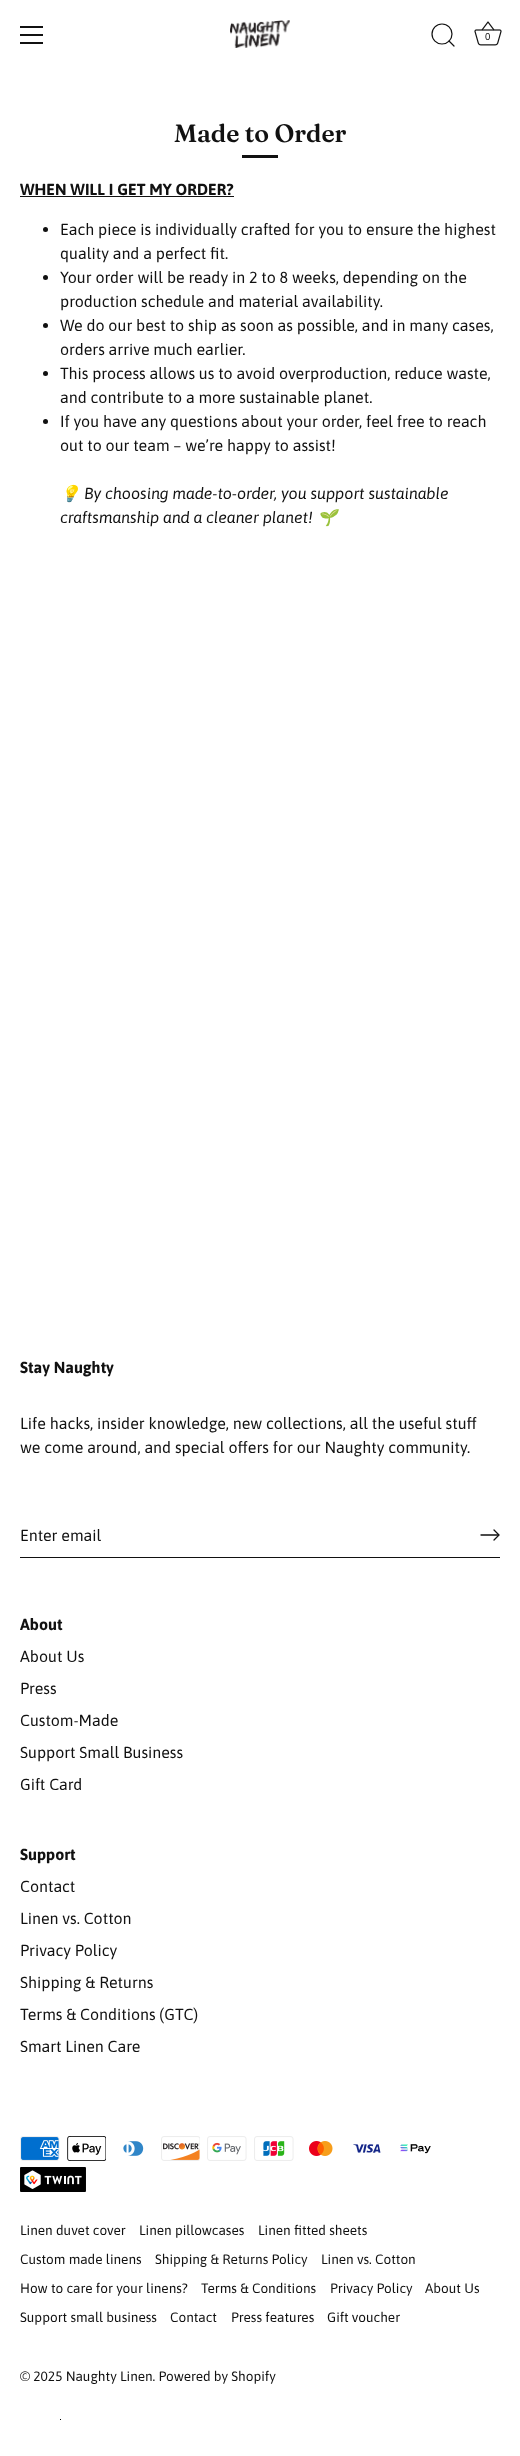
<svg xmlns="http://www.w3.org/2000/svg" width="520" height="2456">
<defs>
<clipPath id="clip1"><rect x="60" y="2419" width="24" height="24"/></clipPath>
</defs>
<rect width="100%" height="100%" fill="#fff"/>
<rect x="20" y="26" width="23" height="2" fill="#111"/>
<rect x="20" y="34" width="23" height="2" fill="#111"/>
<rect x="20" y="42" width="23" height="2" fill="#111"/>
<image x="230" y="20" width="60" height="28" href="media/1.png"/>
<circle cx="442" cy="34" r="10" fill="none" stroke="#111" stroke-width="1.2"/>
<path d="M454 46l-5-5" fill="none" stroke="#111" stroke-width="1.2" stroke-linecap="round" stroke-linejoin="round"/>
<image x="474" y="21" width="28" height="25" href="media/2.png"/>
<text x="485" y="40" style="font-family:Asap;font-size:10px;fill:#111">0</text>
<text x="174" y="142" style="font-family:Fraunces;font-size:25px;font-weight:600;fill:#111">Made to Order</text>
<rect x="242" y="155" width="36" height="3" fill="#111"/>
<text x="20" y="195" style="font-family:Asap;font-size:16px;font-weight:bold;fill:#111">WHEN WILL I GET MY ORDER?</text>
<rect x="20" y="196" width="214" height="1" fill="#111"/>
<circle cx="45.5" cy="229.5" r="2.5" fill="#111"/>
<text x="60" y="235" style="font-family:Asap;font-size:16px;fill:#111">Each piece is individually crafted for you to ensure the highest</text>
<text x="60" y="259" style="font-family:Asap;font-size:16px;fill:#111">quality and a perfect fit.</text>
<circle cx="45.5" cy="277.5" r="2.5" fill="#111"/>
<text x="60" y="283" style="font-family:Asap;font-size:16px;fill:#111">Your order will be ready in 2 to 8 weeks, depending on the</text>
<text x="60" y="307" style="font-family:Asap;font-size:16px;fill:#111">production schedule and material availability.</text>
<circle cx="45.5" cy="325.5" r="2.5" fill="#111"/>
<text x="60" y="331" style="font-family:Asap;font-size:16px;fill:#111">We do our best to ship as soon as possible, and in many cases,</text>
<text x="60" y="355" style="font-family:Asap;font-size:16px;fill:#111">orders arrive much earlier.</text>
<circle cx="45.5" cy="373.5" r="2.5" fill="#111"/>
<text x="60" y="379" style="font-family:Asap;font-size:16px;fill:#111">This process allows us to avoid overproduction, reduce waste,</text>
<text x="60" y="403" style="font-family:Asap;font-size:16px;fill:#111">and contribute to a more sustainable planet.</text>
<circle cx="45.5" cy="421.5" r="2.5" fill="#111"/>
<text x="60" y="427" style="font-family:Asap;font-size:16px;fill:#111">If you have any questions about your order, feel free to reach</text>
<text x="60" y="451" style="font-family:Asap;font-size:16px;fill:#111">out to our team – we’re happy to assist!</text>
<text x="60" y="499" style="font-family:Noto Color Emoji;font-size:16px;font-style:italic;fill:#111">💡</text>
<text x="84" y="499" style="font-family:Asap;font-size:16px;font-style:italic;fill:#111">By choosing made-to-order, you support sustainable</text>
<text x="60" y="523" style="font-family:Asap;font-size:16px;font-style:italic;fill:#111">craftsmanship and a cleaner planet!</text>
<text x="317" y="523" style="font-family:Noto Color Emoji;font-size:16px;font-style:italic;fill:#111">🌱</text>
<text x="20" y="1373" style="font-family:Asap;font-size:16px;font-weight:bold;fill:#111">Stay Naughty</text>
<text x="20" y="1429" style="font-family:Asap;font-size:16px;fill:#111">Life hacks, insider knowledge, new collections, all the useful stuff</text>
<text x="20" y="1453" style="font-family:Asap;font-size:16px;fill:#111">we come around, and special offers for our Naughty community.</text>
<rect x="20" y="1557" width="480" height="1" fill="#111"/>
<text x="20" y="1541" style="font-family:Asap;font-size:16px;fill:#111">Enter email</text>
<path d="M494 1540l5-5l-5-5" fill="none" stroke="#111" stroke-width="1.3" stroke-linecap="round"/>
<path d="M498 1535h-17" fill="none" stroke="#111" stroke-width="1.3" stroke-linecap="round" stroke-linejoin="round"/>
<text x="20" y="1630" style="font-family:Asap;font-size:16px;font-weight:bold;fill:#111">About</text>
<text x="20" y="1662" style="font-family:Asap;font-size:16px;fill:#111">About Us</text>
<text x="20" y="1694" style="font-family:Asap;font-size:16px;fill:#111">Press</text>
<text x="20" y="1726" style="font-family:Asap;font-size:16px;fill:#111">Custom-Made</text>
<text x="20" y="1758" style="font-family:Asap;font-size:16px;fill:#111">Support Small Business</text>
<text x="20" y="1790" style="font-family:Asap;font-size:16px;fill:#111">Gift Card</text>
<text x="20" y="1860" style="font-family:Asap;font-size:16px;font-weight:bold;fill:#111">Support</text>
<text x="20" y="1892" style="font-family:Asap;font-size:16px;fill:#111">Contact</text>
<text x="20" y="1924" style="font-family:Asap;font-size:16px;fill:#111">Linen vs. Cotton</text>
<text x="20" y="1956" style="font-family:Asap;font-size:16px;fill:#111">Privacy Policy</text>
<text x="20" y="1988" style="font-family:Asap;font-size:16px;fill:#111">Shipping &amp; Returns</text>
<text x="20" y="2020" style="font-family:Asap;font-size:16px;fill:#111">Terms &amp; Conditions (GTC)</text>
<text x="20" y="2052" style="font-family:Asap;font-size:16px;fill:#111">Smart Linen Care</text>
<image x="20" y="2136" width="40" height="25" href="media/3.png"/>
<image x="67" y="2136" width="39" height="25" href="media/4.png"/>
<image x="123" y="2141" width="21" height="15" href="media/5.png"/>
<image x="161" y="2136" width="39" height="25" href="media/6.png"/>
<image x="207" y="2136" width="40" height="25" href="media/7.png"/>
<image x="254" y="2136" width="40" height="25" href="media/8.png"/>
<image x="309" y="2141" width="24" height="15" href="media/9.png"/>
<image x="353" y="2144" width="28" height="9" href="media/10.png"/>
<image x="400" y="2144" width="31" height="10" href="media/11.png"/>
<image x="20" y="2167" width="66" height="25" href="media/12.png"/>
<text x="20" y="2235" style="font-family:Asap;font-size:13.6px;fill:#111">Linen duvet cover</text>
<text x="139" y="2235" style="font-family:Asap;font-size:13.6px;fill:#111">Linen pillowcases</text>
<text x="258" y="2235" style="font-family:Asap;font-size:13.6px;fill:#111">Linen fitted sheets</text>
<text x="20" y="2264" style="font-family:Asap;font-size:13.6px;fill:#111">Custom made linens</text>
<text x="155" y="2264" style="font-family:Asap;font-size:13.6px;fill:#111">Shipping &amp; Returns Policy</text>
<text x="321" y="2264" style="font-family:Asap;font-size:13.6px;fill:#111">Linen vs. Cotton</text>
<text x="20" y="2293" style="font-family:Asap;font-size:13.6px;fill:#111">How to care for your linens?</text>
<text x="201" y="2293" style="font-family:Asap;font-size:13.6px;fill:#111">Terms &amp; Conditions</text>
<text x="330" y="2293" style="font-family:Asap;font-size:13.6px;fill:#111">Privacy Policy</text>
<text x="425" y="2293" style="font-family:Asap;font-size:13.6px;fill:#111">About Us</text>
<text x="20" y="2322" style="font-family:Asap;font-size:13.6px;fill:#111">Support small business</text>
<text x="170" y="2322" style="font-family:Asap;font-size:13.6px;fill:#111">Contact</text>
<text x="231" y="2322" style="font-family:Asap;font-size:13.6px;fill:#111">Press features</text>
<text x="327" y="2322" style="font-family:Asap;font-size:13.6px;fill:#111">Gift voucher</text>
<text x="20" y="2381" style="font-family:Asap;font-size:13.6px;fill:#111">© 2025 Naughty Linen. Powered by Shopify</text>
<g clip-path="url(#clip1)">
<path d="M61 2420l-1-1l-1 1" fill="none" stroke="#000"/>
</g>
</svg>
